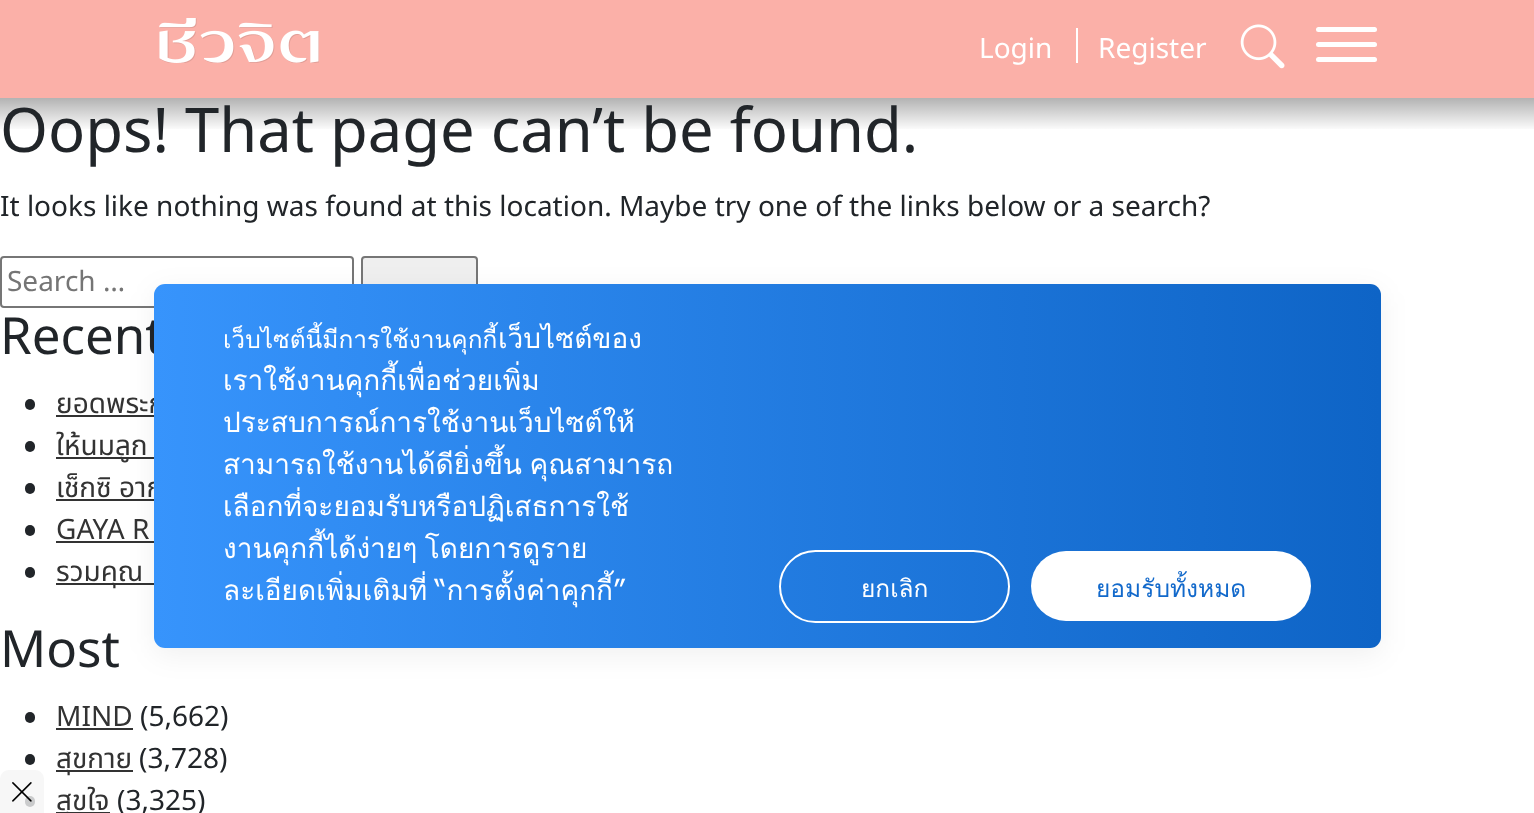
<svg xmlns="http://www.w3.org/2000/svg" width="1534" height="813">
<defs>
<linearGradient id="g1" gradientUnits="userSpaceOnUse" x1="767" y1="98" x2="767" y2="158"><stop offset="0" stop-color="#000" stop-opacity="0.3"/><stop offset="0.55" stop-color="#000" stop-opacity="0"/></linearGradient>
<linearGradient id="g2" gradientUnits="userSpaceOnUse" x1="154" y1="466" x2="1381" y2="466"><stop offset="0" stop-color="#3794fc"/><stop offset="1" stop-color="#0e64c6"/></linearGradient>
</defs>
<rect width="100%" height="100%" fill="#fff"/>
<rect width="1534" height="98" fill="#fbb0a8"/>
<image x="159" y="18" width="160" height="45" href="media/1.png"/>
<text x="979" y="58" style="font-family:Noto Sans Thai;font-size:28px;fill:#fff">Login</text>
<rect x="1076" y="28" width="2" height="35" fill="#fff"/>
<text x="1098" y="58" style="font-family:Noto Sans Thai;font-size:28px;fill:#fff">Register</text>
<image x="1240" y="24" width="45" height="45" href="media/2.png"/>
<rect x="1316" y="27" width="61" height="5" rx="2.5" fill="#fff"/>
<rect x="1316" y="42" width="61" height="5" rx="2.5" fill="#fff"/>
<rect x="1316" y="57" width="61" height="5" rx="2.5" fill="#fff"/>
<rect y="98" width="1534" height="31" fill="url(#g1)"/>
<text x="0" y="152" style="font-family:Noto Sans Thai;font-size:61.5px;fill:#212529">Oops! That page can’t be found.</text>
<text x="0" y="216" style="font-family:Noto Sans Thai;font-size:28px;fill:#212529">It looks like nothing was found at this location. Maybe try one of the links below or a search?</text>
<rect x="1" y="257" width="352" height="50" rx="3" fill="none" stroke="#767676" stroke-width="2"/>
<text x="7" y="291" style="font-family:Noto Sans Thai;font-size:28px;fill:#757575">Search …</text>
<rect x="362" y="257" width="115" height="50" rx="3" fill="#efefef" stroke="#767676" stroke-width="2"/>
<text x="0" y="354" style="font-family:Noto Sans Thai;font-size:51px;fill:#212529">Recent</text>
<rect x="25" y="399" width="10" height="11" rx="5" fill="#212529"/>
<text x="56" y="413" style="font-family:Noto Sans Thai;font-size:28px;fill:#333">ยอดพระก</text>
<rect x="56" y="415" width="98" height="2" fill="#333"/>
<rect x="25" y="441" width="10" height="11" rx="5" fill="#212529"/>
<rect x="56" y="457" width="98" height="2" fill="#333"/>
<text x="56" y="455" style="font-family:Noto Sans Thai;font-size:28px;fill:#333">ให้นมลูก</text>
<rect x="25" y="483" width="10" height="11" rx="5" fill="#212529"/>
<text x="56" y="497" style="font-family:Noto Sans Thai;font-size:28px;fill:#333">เช็กซิ อาก</text>
<rect x="56" y="499" width="98" height="2" fill="#333"/>
<rect x="25" y="525" width="10" height="11" rx="5" fill="#212529"/>
<text x="56" y="539" style="font-family:Noto Sans Thai;font-size:28px;fill:#333">GAYA R</text>
<rect x="56" y="541" width="98" height="2" fill="#333"/>
<rect x="25" y="567" width="10" height="11" rx="5" fill="#212529"/>
<rect x="56" y="583" width="98" height="2" fill="#333"/>
<text x="56" y="581" style="font-family:Noto Sans Thai;font-size:28px;fill:#333">รวมคุณ</text>
<text x="0" y="667" style="font-family:Noto Sans Thai;font-size:51px;fill:#212529">Most</text>
<rect x="25" y="712" width="10" height="11" rx="5" fill="#212529"/>
<text x="56" y="726" style="font-family:Noto Sans Thai;font-size:28px;fill:#333">MIND</text>
<rect x="56" y="728" width="77" height="2" fill="#333"/>
<text x="140" y="726" style="font-family:Noto Sans Thai;font-size:28px;fill:#212529">(5,662)</text>
<rect x="25" y="754" width="10" height="11" rx="5" fill="#212529"/>
<rect x="56" y="770" width="77" height="2" fill="#333"/>
<text x="56" y="768" style="font-family:Noto Sans Thai;font-size:28px;fill:#333">สุขกาย</text>
<text x="139" y="768" style="font-family:Noto Sans Thai;font-size:28px;fill:#212529">(3,728)</text>
<rect x="25" y="796" width="10" height="11" rx="5" fill="#212529"/>
<rect x="56" y="812" width="54" height="1" fill="#333"/>
<text x="56" y="810" style="font-family:Noto Sans Thai;font-size:28px;fill:#333">สุขใจ</text>
<text x="117" y="810" style="font-family:Noto Sans Thai;font-size:28px;fill:#212529">(3,325)</text>
<rect x="154" y="291" width="1227" height="364" rx="11" fill="#0000000f" filter="blur(14px)"/>
<rect x="154" y="284" width="1227" height="364" rx="11" fill="url(#g2)"/>
<text x="223" y="348" style="font-family:Loma;font-size:24.5px;fill:#fff">เว็บไซต์นี้มีการใช้งานคุกกี้</text>
<text x="498" y="348" style="font-family:Loma;font-size:28px;fill:#fff">เว็บไซต์ของ</text>
<text x="223" y="390" style="font-family:Loma;font-size:28px;fill:#fff">เราใช้งานคุกกี้เพื่อช่วยเพิ่ม</text>
<text x="223" y="432" style="font-family:Loma;font-size:28px;fill:#fff">ประสบการณ์การใช้งานเว็บไซต์ให้</text>
<text x="223" y="474" word-spacing="-2" style="font-family:Loma;font-size:28px;fill:#fff">สามารถใช้งานได้ดียิ่งขึ้น คุณสามารถ</text>
<text x="223" y="516" style="font-family:Loma;font-size:28px;fill:#fff">เลือกที่จะยอมรับหรือปฏิเสธการใช้</text>
<text x="223" y="558" word-spacing="-2" style="font-family:Loma;font-size:28px;fill:#fff">งานคุกกี้ได้ง่ายๆ โดยการดูราย</text>
<text x="223" y="600" word-spacing="-2" style="font-family:Loma;font-size:28px;fill:#fff">ละเอียดเพิ่มเติมที่ “การตั้งค่าคุกกี้”</text>
<rect x="780" y="551" width="229" height="71" rx="35.5" fill="none" stroke="#fff" stroke-width="2"/>
<text x="861" y="597" style="font-family:Loma;font-size:24.5px;fill:#fff">ยกเลิก</text>
<rect x="1031" y="551" width="280" height="70" rx="35" fill="#fff"/>
<text x="1096" y="597" style="font-family:Loma;font-size:24.5px;fill:#1269cb">ยอมรับทั้งหมด</text>
<path d="M9 770h26c5 0 9 4 9 9v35h-44v-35c0-5 4-9 9-9z" fill="#f5f5f5cc"/>
<image x="12" y="782" width="20" height="20" href="media/3.png"/>
</svg>
